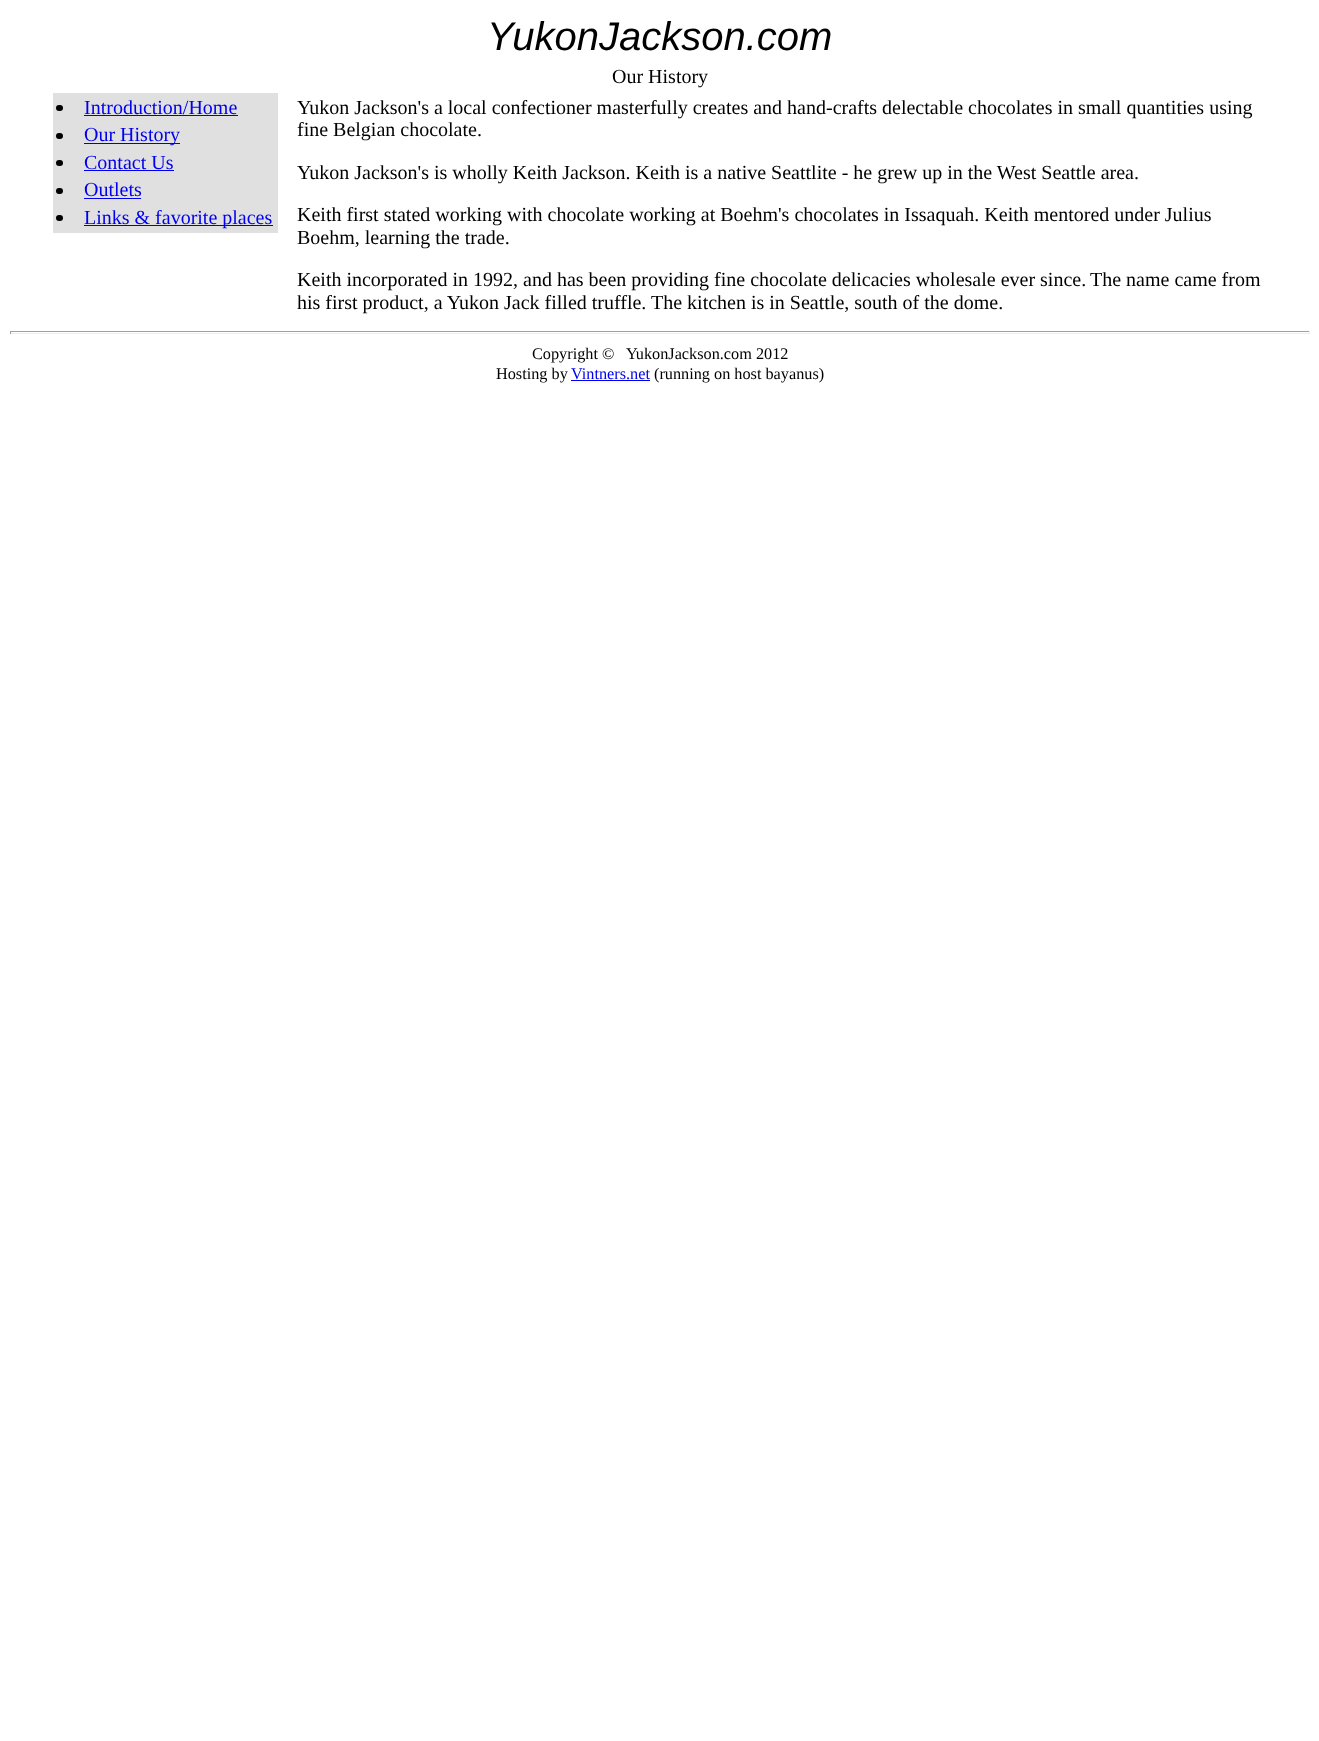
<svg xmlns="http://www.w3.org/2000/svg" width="1319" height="1741">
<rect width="100%" height="100%" fill="#fff"/>
<text x="487" y="50" style="font-family:Liberation Sans;font-size:40px;font-style:italic;fill:#000">YukonJackson.com</text>
<text x="612" y="83" style="font-family:Liberation Serif;font-size:20px;fill:#000">Our History</text>
<rect x="53" y="93" width="225" height="140" fill="#e0e0e0"/>
<rect x="56" y="105" width="7" height="6" rx="3" fill="#000"/>
<text x="84" y="114" style="font-family:Liberation Serif;font-size:20px;fill:#00e">Introduction/Home</text>
<rect x="84" y="115" width="154" height="1" fill="#00e"/>
<rect x="56" y="133" width="7" height="6" rx="3" fill="#000"/>
<rect x="84" y="143" width="96" height="1" fill="#00e"/>
<text x="84" y="141" style="font-family:Liberation Serif;font-size:20px;fill:#00e">Our History</text>
<rect x="56" y="160" width="7" height="6" rx="3" fill="#000"/>
<text x="84" y="169" style="font-family:Liberation Serif;font-size:20px;fill:#00e">Contact Us</text>
<rect x="84" y="170" width="90" height="1" fill="#00e"/>
<rect x="56" y="188" width="7" height="6" rx="3" fill="#000"/>
<text x="84" y="196" style="font-family:Liberation Serif;font-size:20px;fill:#00e">Outlets</text>
<rect x="84" y="198" width="57" height="1" fill="#00e"/>
<rect x="56" y="215" width="7" height="6" rx="3" fill="#000"/>
<rect x="84" y="225" width="189" height="1" fill="#00e"/>
<text x="84" y="224" style="font-family:Liberation Serif;font-size:20px;fill:#00e">Links &amp; favorite places</text>
<text x="297" y="114" style="font-family:Liberation Serif;font-size:20px;fill:#000">Yukon Jackson's a local confectioner masterfully creates and hand-crafts delectable chocolates in small quantities using</text>
<text x="297" y="136" style="font-family:Liberation Serif;font-size:20px;fill:#000">fine Belgian chocolate.</text>
<text x="297" y="179" style="font-family:Liberation Serif;font-size:20px;fill:#000">Yukon Jackson's is wholly Keith Jackson. Keith is a native Seattlite - he grew up in the West Seattle area.</text>
<text x="297" y="221" style="font-family:Liberation Serif;font-size:20px;fill:#000">Keith first stated working with chocolate working at Boehm's chocolates in Issaquah. Keith mentored under Julius</text>
<text x="297" y="244" style="font-family:Liberation Serif;font-size:20px;fill:#000">Boehm, learning the trade.</text>
<text x="297" y="286" style="font-family:Liberation Serif;font-size:20px;fill:#000">Keith incorporated in 1992, and has been providing fine chocolate delicacies wholesale ever since.</text>
<text x="1090" y="286" style="font-family:Liberation Serif;font-size:20px;fill:#000">The name came from</text>
<text x="297" y="309" style="font-family:Liberation Serif;font-size:20px;fill:#000">his first product, a Yukon Jack filled truffle.</text>
<text x="651" y="309" style="font-family:Liberation Serif;font-size:20px;fill:#000">The kitchen is in Seattle, south of the dome.</text>
<rect x="10" y="331" width="1300" height="1" fill="#9f9f9f"/>
<rect x="1309" y="331" width="1" height="3" fill="#eee"/>
<rect x="10" y="333" width="1300" height="1" fill="#eee"/>
<rect x="10" y="331" width="1" height="3" fill="#9f9f9f"/>
<text x="532" y="359" style="font-family:Liberation Serif;font-size:16.25px;fill:#000" xml:space="preserve">Copyright ©   YukonJackson.com 2012</text>
<text x="496" y="379" style="font-family:Liberation Serif;font-size:16.25px;fill:#000">Hosting by</text>
<text x="571" y="379" style="font-family:Liberation Serif;font-size:16.25px;fill:#00e">Vintners.net</text>
<rect x="571" y="380" width="79" height="1" fill="#00e"/>
<text x="654" y="379" style="font-family:Liberation Serif;font-size:16.25px;fill:#000">(running on host bayanus)</text>
</svg>
